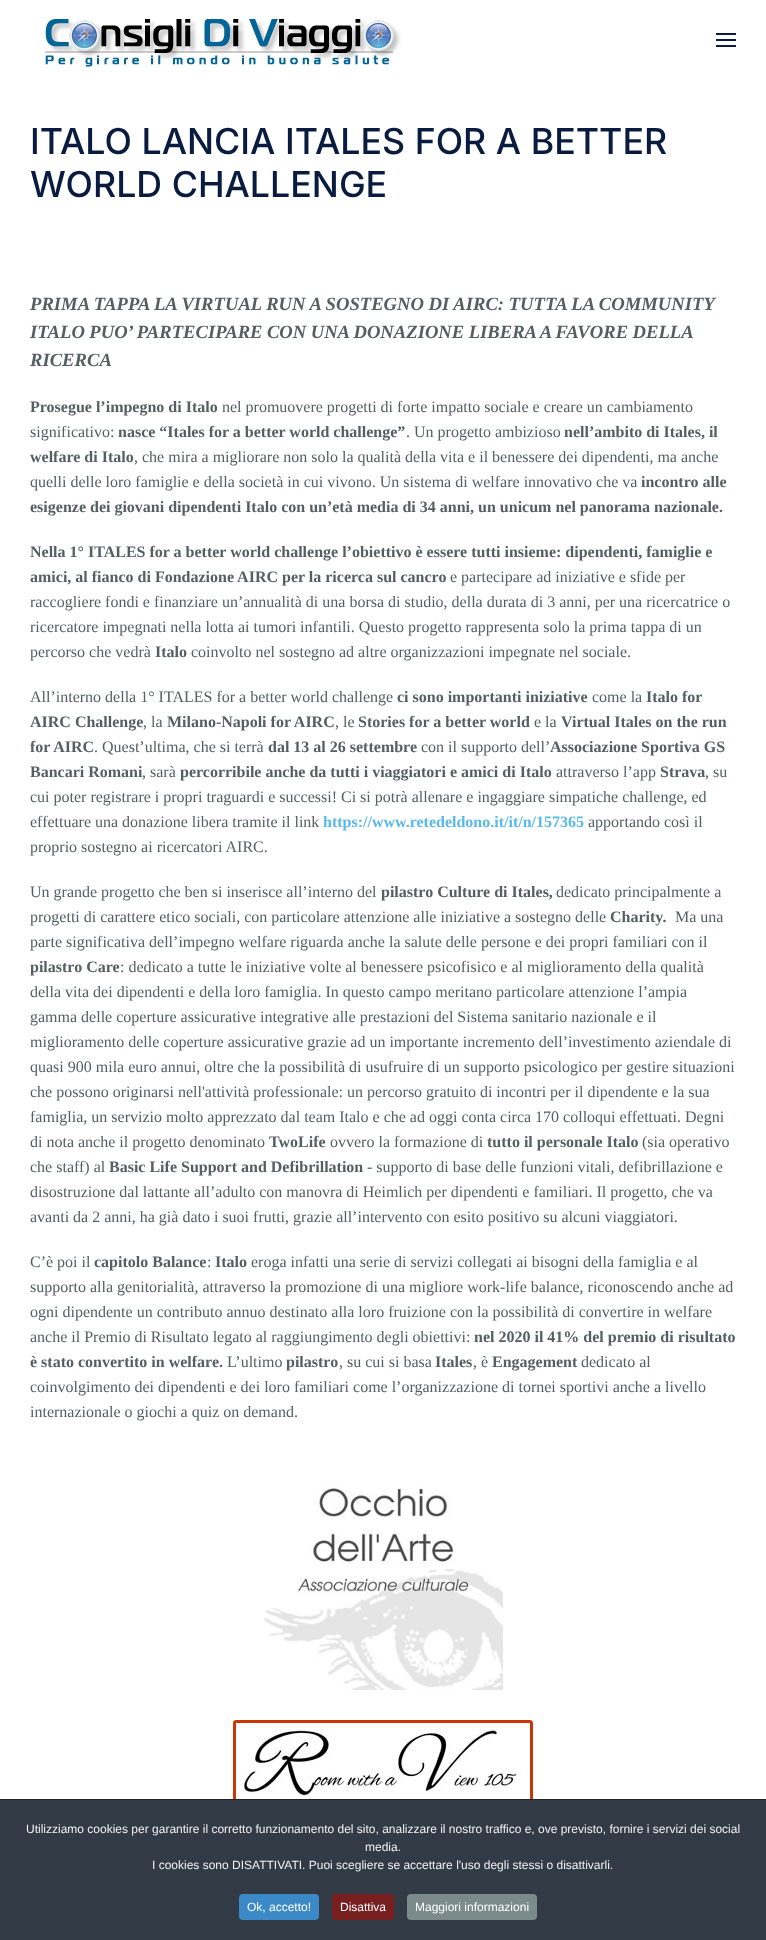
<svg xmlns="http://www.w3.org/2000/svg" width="766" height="1940">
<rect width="100%" height="100%" fill="#fff"/>
<image x="45" y="19" width="356" height="48" href="media/1.png"/>
<rect x="716" y="33" width="20" height="2" fill="#091c3f"/>
<rect x="716" y="39" width="20" height="2" fill="#091c3f"/>
<rect x="716" y="45" width="20" height="2" fill="#091c3f"/>
<text x="30" y="154" style="font-family:Inter;font-size:35.75px;font-weight:500;fill:#091c3f">ITALO LANCIA ITALES FOR A BETTER</text>
<text x="30" y="197" style="font-family:Inter;font-size:35.75px;font-weight:500;fill:#091c3f">WORLD CHALLENGE</text>
<text x="30" y="310" style="font-family:Liberation Serif;font-size:18.65px;font-weight:bold;font-style:italic;fill:#565e5f">PRIMA TAPPA LA VIRTUAL RUN A SOSTEGNO DI AIRC: TUTTA LA COMMUNITY</text>
<text x="30" y="338" word-spacing="-0.25" style="font-family:Liberation Serif;font-size:18.65px;font-weight:bold;font-style:italic;fill:#565e5f">ITALO PUO’ PARTECIPARE CON UNA DONAZIONE LIBERA A FAVORE DELLA</text>
<text x="30" y="366" style="font-family:Liberation Serif;font-size:18.65px;font-weight:bold;font-style:italic;fill:#565e5f">RICERCA</text>
<text x="30" y="412" style="font-family:Liberation Serif;font-size:16px;font-weight:bold;fill:#565e5f">Prosegue l’impegno di Italo</text>
<text x="222" y="412" style="font-family:Liberation Serif;font-size:16px;fill:#565e5f">nel promuovere progetti di forte impatto sociale e creare un cambiamento</text>
<text x="30" y="437" style="font-family:Liberation Serif;font-size:16px;fill:#565e5f">significativo:</text>
<text x="118" y="437" style="font-family:Liberation Serif;font-size:16px;font-weight:bold;fill:#565e5f">nasce “Itales for a better world challenge”</text>
<text x="406" y="437" style="font-family:Liberation Serif;font-size:16px;fill:#565e5f">. Un progetto ambizioso</text>
<text x="564" y="437" style="font-family:Liberation Serif;font-size:16px;font-weight:bold;fill:#565e5f">nell’ambito di Itales, il</text>
<text x="30" y="462" style="font-family:Liberation Serif;font-size:16px;font-weight:bold;fill:#565e5f">welfare di Italo</text>
<text x="134" y="462" style="font-family:Liberation Serif;font-size:16px;fill:#565e5f">, che mira a migliorare non solo la qualità della vita e il benessere dei dipendenti, ma anche</text>
<text x="30" y="487" style="font-family:Liberation Serif;font-size:16px;fill:#565e5f">quelli delle loro famiglie e della società in cui vivono. Un sistema di welfare innovativo che va</text>
<text x="641" y="487" style="font-family:Liberation Serif;font-size:16px;font-weight:bold;fill:#565e5f">incontro alle</text>
<text x="30" y="512" style="font-family:Liberation Serif;font-size:16px;font-weight:bold;fill:#565e5f">esigenze dei giovani dipendenti Italo con un’età media di 34 anni, un unicum nel panorama nazionale.</text>
<text x="30" y="557" style="font-family:Liberation Serif;font-size:16px;font-weight:bold;fill:#565e5f">Nella 1° ITALES for a better world challenge l’obiettivo è essere tutti insieme: dipendenti, famiglie e</text>
<text x="30" y="582" style="font-family:Liberation Serif;font-size:16px;font-weight:bold;fill:#565e5f">amici, al fianco di Fondazione AIRC per la ricerca sul cancro</text>
<text x="450" y="582" style="font-family:Liberation Serif;font-size:16px;fill:#565e5f">e partecipare ad iniziative e sfide per</text>
<text x="30" y="607" style="font-family:Liberation Serif;font-size:16px;fill:#565e5f">raccogliere fondi e finanziare un’annualità di una borsa di studio, della durata di 3 anni, per una ricercatrice o</text>
<text x="30" y="632" style="font-family:Liberation Serif;font-size:16px;fill:#565e5f">ricercatore impegnati nella lotta ai tumori infantili. Questo progetto rappresenta solo la prima tappa di un</text>
<text x="30" y="657" style="font-family:Liberation Serif;font-size:16px;fill:#565e5f">percorso che vedrà</text>
<text x="155" y="657" style="font-family:Liberation Serif;font-size:16px;font-weight:bold;fill:#565e5f">Italo</text>
<text x="191" y="657" style="font-family:Liberation Serif;font-size:16px;fill:#565e5f">coinvolto nel sostegno ad altre organizzazioni impegnate nel sociale.</text>
<text x="30" y="702" style="font-family:Liberation Serif;font-size:16px;fill:#565e5f">All’interno della 1° ITALES for a better world challenge</text>
<text x="397" y="702" style="font-family:Liberation Serif;font-size:16px;font-weight:bold;fill:#565e5f">ci sono importanti iniziative</text>
<text x="592" y="702" style="font-family:Liberation Serif;font-size:16px;fill:#565e5f">come la</text>
<text x="646" y="702" style="font-family:Liberation Serif;font-size:16px;font-weight:bold;fill:#565e5f">Italo for</text>
<text x="30" y="727" style="font-family:Liberation Serif;font-size:16px;font-weight:bold;fill:#565e5f">AIRC Challenge</text>
<text x="143" y="727" style="font-family:Liberation Serif;font-size:16px;fill:#565e5f">, la</text>
<text x="167" y="727" style="font-family:Liberation Serif;font-size:16px;font-weight:bold;fill:#565e5f">Milano-Napoli for AIRC</text>
<text x="335" y="727" style="font-family:Liberation Serif;font-size:16px;fill:#565e5f">, le</text>
<text x="358" y="727" style="font-family:Liberation Serif;font-size:16px;font-weight:bold;fill:#565e5f">Stories for a better world</text>
<text x="534" y="727" style="font-family:Liberation Serif;font-size:16px;fill:#565e5f">e la</text>
<text x="561" y="727" style="font-family:Liberation Serif;font-size:16px;font-weight:bold;fill:#565e5f">Virtual Itales on the run</text>
<text x="30" y="752" style="font-family:Liberation Serif;font-size:16px;font-weight:bold;fill:#565e5f">for AIRC</text>
<text x="94" y="752" style="font-family:Liberation Serif;font-size:16px;fill:#565e5f">. Quest’ultima, che si terrà</text>
<text x="268" y="752" style="font-family:Liberation Serif;font-size:16px;font-weight:bold;fill:#565e5f">dal 13 al 26 settembre</text>
<text x="421" y="752" style="font-family:Liberation Serif;font-size:16px;fill:#565e5f">con il supporto dell’</text>
<text x="550" y="752" style="font-family:Liberation Serif;font-size:16px;font-weight:bold;fill:#565e5f">Associazione Sportiva GS</text>
<text x="30" y="777" style="font-family:Liberation Serif;font-size:16px;font-weight:bold;fill:#565e5f">Bancari Romani</text>
<text x="142" y="777" style="font-family:Liberation Serif;font-size:16px;fill:#565e5f">, sarà</text>
<text x="180" y="777" style="font-family:Liberation Serif;font-size:16px;font-weight:bold;fill:#565e5f">percorribile anche da tutti i viaggiatori e amici di Italo</text>
<text x="556" y="777" style="font-family:Liberation Serif;font-size:16px;fill:#565e5f">attraverso l’app</text>
<text x="660" y="777" style="font-family:Liberation Serif;font-size:16px;font-weight:bold;fill:#565e5f">Strava</text>
<text x="705" y="777" style="font-family:Liberation Serif;font-size:16px;fill:#565e5f">, su</text>
<text x="30" y="802" style="font-family:Liberation Serif;font-size:16px;fill:#565e5f">cui poter registrare i propri traguardi e successi! Ci si potrà allenare e ingaggiare simpatiche challenge, ed</text>
<text x="30" y="827" style="font-family:Liberation Serif;font-size:16px;fill:#565e5f">effettuare una donazione libera tramite il link</text>
<text x="323" y="827" style="font-family:Liberation Serif;font-size:16px;font-weight:bold;fill:#5bb9e9">https://www.retedeldono.it/it/n/157365</text>
<text x="588" y="827" style="font-family:Liberation Serif;font-size:16px;fill:#565e5f">apportando così il</text>
<text x="30" y="852" style="font-family:Liberation Serif;font-size:16px;fill:#565e5f">proprio sostegno ai ricercatori AIRC.</text>
<text x="30" y="897" style="font-family:Liberation Serif;font-size:16px;fill:#565e5f">Un grande progetto che ben si inserisce all’interno del</text>
<text x="381" y="897" style="font-family:Liberation Serif;font-size:16px;font-weight:bold;fill:#565e5f">pilastro Culture di Itales,</text>
<text x="556" y="897" style="font-family:Liberation Serif;font-size:16px;fill:#565e5f">dedicato principalmente a</text>
<text x="30" y="922" style="font-family:Liberation Serif;font-size:16px;fill:#565e5f">progetti di carattere etico sociali, con particolare attenzione alle iniziative a sostegno delle</text>
<text x="610" y="922" style="font-family:Liberation Serif;font-size:16px;font-weight:bold;fill:#565e5f">Charity.</text>
<text x="675" y="922" style="font-family:Liberation Serif;font-size:16px;fill:#565e5f">Ma una</text>
<text x="30" y="947" style="font-family:Liberation Serif;font-size:16px;fill:#565e5f">parte significativa dell’impegno welfare riguarda anche la salute delle persone e dei propri familiari con il</text>
<text x="30" y="972" style="font-family:Liberation Serif;font-size:16px;font-weight:bold;fill:#565e5f">pilastro Care</text>
<text x="120" y="972" style="font-family:Liberation Serif;font-size:16px;fill:#565e5f">: dedicato a tutte le iniziative volte al benessere psicofisico e al miglioramento della qualità</text>
<text x="30" y="997" style="font-family:Liberation Serif;font-size:16px;fill:#565e5f">della vita dei dipendenti e della loro famiglia. In questo campo meritano particolare attenzione l’ampia</text>
<text x="30" y="1022" style="font-family:Liberation Serif;font-size:16px;fill:#565e5f">gamma delle coperture assicurative integrative alle prestazioni del Sistema sanitario nazionale e il</text>
<text x="30" y="1047" style="font-family:Liberation Serif;font-size:16px;fill:#565e5f">miglioramento delle coperture assicurative grazie ad un importante incremento dell’investimento aziendale di</text>
<text x="30" y="1072" style="font-family:Liberation Serif;font-size:16px;fill:#565e5f">quasi 900 mila euro annui, oltre che la possibilità di usufruire di un supporto psicologico per gestire situazioni</text>
<text x="30" y="1097" style="font-family:Liberation Serif;font-size:16px;fill:#565e5f">che possono originarsi nell'attività professionale: un percorso gratuito di incontri per il dipendente e la sua</text>
<text x="30" y="1122" style="font-family:Liberation Serif;font-size:16px;fill:#565e5f">famiglia, un servizio molto apprezzato dal team Italo e che ad oggi conta circa 170 colloqui effettuati. Degni</text>
<text x="30" y="1147" style="font-family:Liberation Serif;font-size:16px;fill:#565e5f">di nota anche il progetto denominato</text>
<text x="269" y="1147" style="font-family:Liberation Serif;font-size:16px;font-weight:bold;fill:#565e5f">TwoLife</text>
<text x="330" y="1147" style="font-family:Liberation Serif;font-size:16px;fill:#565e5f">ovvero la formazione di</text>
<text x="487" y="1147" style="font-family:Liberation Serif;font-size:16px;font-weight:bold;fill:#565e5f">tutto il personale Italo</text>
<text x="642" y="1147" style="font-family:Liberation Serif;font-size:16px;fill:#565e5f">(sia operativo</text>
<text x="30" y="1172" style="font-family:Liberation Serif;font-size:16px;fill:#565e5f">che staff) al</text>
<text x="109" y="1172" style="font-family:Liberation Serif;font-size:16px;font-weight:bold;fill:#565e5f">Basic Life Support and Defibrillation</text>
<text x="367" y="1172" style="font-family:Liberation Serif;font-size:16px;fill:#565e5f">- supporto di base delle funzioni vitali, defibrillazione e</text>
<text x="30" y="1197" style="font-family:Liberation Serif;font-size:16px;fill:#565e5f">disostruzione dal lattante all’adulto con manovra di Heimlich per dipendenti e familiari. Il progetto, che va</text>
<text x="30" y="1222" style="font-family:Liberation Serif;font-size:16px;fill:#565e5f">avanti da 2 anni, ha già dato i suoi frutti, grazie all’intervento con esito positivo su alcuni viaggiatori.</text>
<text x="30" y="1267" style="font-family:Liberation Serif;font-size:16px;fill:#565e5f">C’è poi il</text>
<text x="94" y="1267" style="font-family:Liberation Serif;font-size:16px;font-weight:bold;fill:#565e5f">capitolo Balance</text>
<text x="207" y="1267" style="font-family:Liberation Serif;font-size:16px;fill:#565e5f">:</text>
<text x="215" y="1267" style="font-family:Liberation Serif;font-size:16px;font-weight:bold;fill:#565e5f">Italo</text>
<text x="251" y="1267" style="font-family:Liberation Serif;font-size:16px;fill:#565e5f">eroga infatti una serie di servizi collegati ai bisogni della famiglia e al</text>
<text x="30" y="1292" style="font-family:Liberation Serif;font-size:16px;fill:#565e5f">supporto alla genitorialità, attraverso la promozione di una migliore work-life balance, riconoscendo anche ad</text>
<text x="30" y="1317" style="font-family:Liberation Serif;font-size:16px;fill:#565e5f">ogni dipendente un contributo annuo destinato alla loro fruizione con la possibilità di convertire in welfare</text>
<text x="30" y="1342" style="font-family:Liberation Serif;font-size:16px;fill:#565e5f">anche il Premio di Risultato legato al raggiungimento degli obiettivi:</text>
<text x="474" y="1342" style="font-family:Liberation Serif;font-size:16px;font-weight:bold;fill:#565e5f">nel 2020 il 41% del premio di risultato</text>
<text x="30" y="1367" style="font-family:Liberation Serif;font-size:16px;font-weight:bold;fill:#565e5f">è stato convertito in welfare.</text>
<text x="227" y="1367" style="font-family:Liberation Serif;font-size:16px;fill:#565e5f">L’ultimo</text>
<text x="286" y="1367" style="font-family:Liberation Serif;font-size:16px;font-weight:bold;fill:#565e5f">pilastro</text>
<text x="339" y="1367" style="font-family:Liberation Serif;font-size:16px;fill:#565e5f">, su cui si basa</text>
<text x="435" y="1367" style="font-family:Liberation Serif;font-size:16px;font-weight:bold;fill:#565e5f">Itales</text>
<text x="473" y="1367" style="font-family:Liberation Serif;font-size:16px;fill:#565e5f">, è</text>
<text x="492" y="1367" style="font-family:Liberation Serif;font-size:16px;font-weight:bold;fill:#565e5f">Engagement</text>
<text x="581" y="1367" style="font-family:Liberation Serif;font-size:16px;fill:#565e5f">dedicato al</text>
<text x="30" y="1392" style="font-family:Liberation Serif;font-size:16px;fill:#565e5f">coinvolgimento dei dipendenti e dei loro familiari come l’organizzazione di tornei sportivi anche a livello</text>
<text x="30" y="1417" style="font-family:Liberation Serif;font-size:16px;fill:#565e5f">internazionale o giochi a quiz on demand.</text>
<image x="264" y="1487" width="239" height="203" href="media/2.png"/>
<image x="233" y="1720" width="300" height="79" href="media/3.png"/>
<rect y="1800" width="766" height="140" fill="#323a45"/>
<rect y="1799" width="766" height="1" fill="#202226"/>
<text x="26" y="1833" style="font-family:Liberation Sans;font-size:12px;fill:#f1f1f3">Utilizziamo cookies per garantire il corretto funzionamento del sito, analizzare il nostro traffico e, ove previsto, fornire i servizi dei social</text>
<text x="365" y="1851" style="font-family:Liberation Sans;font-size:12px;fill:#f1f1f3">media.</text>
<text x="152" y="1869" style="font-family:Liberation Sans;font-size:12px;fill:#f1f1f3">I cookies sono DISATTIVATI. Puoi scegliere se accettare l'uso degli stessi o disattivarli.</text>
<rect x="239" y="1894" width="80" height="26" rx="4" fill="#3b89c7"/>
<text x="247" y="1911" style="font-family:Liberation Sans;font-size:12px;fill:#fff">Ok, accetto!</text>
<rect x="332" y="1894" width="62" height="26" rx="4" fill="#771f1f"/>
<text x="340" y="1911" style="font-family:Liberation Sans;font-size:12px;fill:#fff">Disattiva</text>
<rect x="407" y="1894" width="130" height="26" rx="4" fill="#7b8a8b"/>
<text x="415" y="1911" style="font-family:Liberation Sans;font-size:12px;fill:#fff">Maggiori informazioni</text>
</svg>
